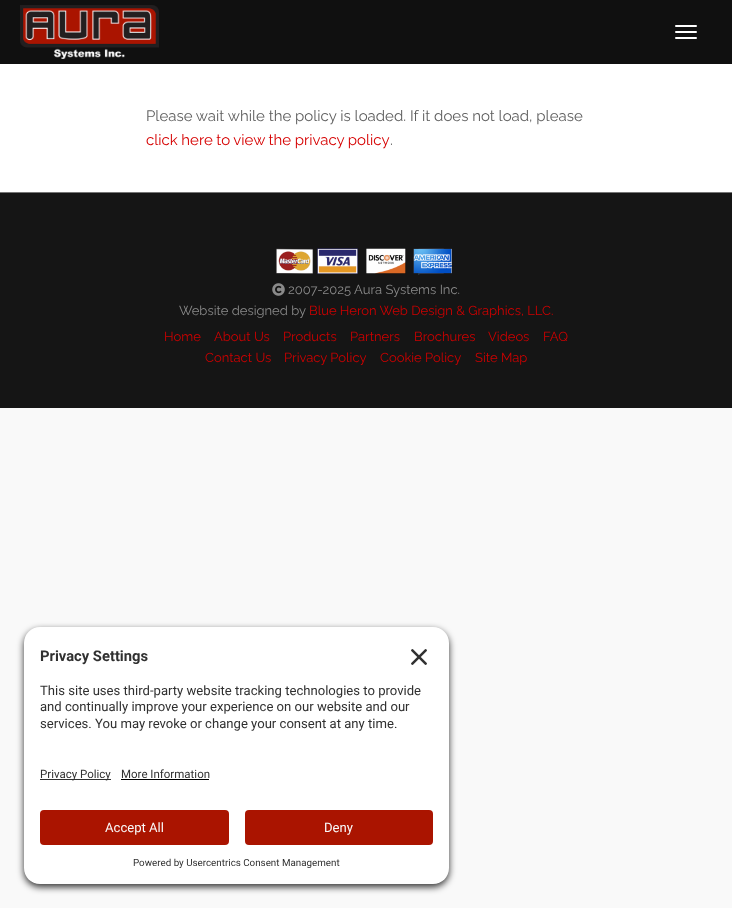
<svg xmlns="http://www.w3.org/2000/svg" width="732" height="908">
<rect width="100%" height="100%" fill="#f9f9f9"/>
<rect width="732" height="64" fill="#101010"/>
<image x="20" y="5" width="139" height="54" href="media/1.png"/>
<rect x="675" y="25" width="22" height="2" rx="1" fill="#fff"/>
<rect x="675" y="31" width="22" height="2" rx="1" fill="#fff"/>
<rect x="675" y="37" width="22" height="2" rx="1" fill="#fff"/>
<rect y="64" width="732" height="128" fill="#fff"/>
<text x="146" y="121" style="font-family:Raleway;font-size:15px;font-weight:100;fill:#5f5f5f">Please wait while the policy is loaded. If it does not load, please</text>
<text x="146" y="145" word-spacing="-0.25" style="font-family:Raleway;font-size:15px;font-weight:100;fill:#d60000">click here to view the privacy policy</text>
<text x="390" y="145" style="font-family:Raleway;font-size:15px;font-weight:100;fill:#5f5f5f">.</text>
<rect y="193" width="732" height="215" fill="#151515"/>
<rect y="192" width="732" height="1" fill="#757575"/>
<image x="276" y="248" width="176" height="27" href="media/2.png"/>
<image x="272" y="283" width="13" height="13" href="media/3.png"/>
<text x="288" y="294" style="font-family:Raleway;font-size:13px;font-weight:100;fill:#8a8a8a">2007-2025 Aura Systems Inc.</text>
<text x="179" y="315" style="font-family:Raleway;font-size:13px;font-weight:100;fill:#8a8a8a">Website designed by</text>
<text x="309" y="315" style="font-family:Raleway;font-size:13px;font-weight:100;fill:#ce0000">Blue Heron Web Design &amp; Graphics, LLC.</text>
<text x="164" y="341" style="font-family:Raleway;font-size:13px;font-weight:100;fill:#ce0000">Home</text>
<text x="214" y="341" style="font-family:Raleway;font-size:13px;font-weight:100;fill:#ce0000">About Us</text>
<text x="283" y="341" style="font-family:Raleway;font-size:13px;font-weight:100;fill:#ce0000">Products</text>
<text x="350" y="341" style="font-family:Raleway;font-size:13px;font-weight:100;fill:#ce0000">Partners</text>
<text x="414" y="341" style="font-family:Raleway;font-size:13px;font-weight:100;fill:#ce0000">Brochures</text>
<text x="488" y="341" style="font-family:Raleway;font-size:13px;font-weight:100;fill:#ce0000">Videos</text>
<text x="543" y="341" style="font-family:Raleway;font-size:13px;font-weight:100;fill:#ce0000">FAQ</text>
<text x="205" y="362" style="font-family:Raleway;font-size:13px;font-weight:100;fill:#ce0000">Contact Us</text>
<text x="284" y="362" style="font-family:Raleway;font-size:13px;font-weight:100;fill:#ce0000">Privacy Policy</text>
<text x="380" y="362" style="font-family:Raleway;font-size:13px;font-weight:100;fill:#ce0000">Cookie Policy</text>
<text x="475" y="362" style="font-family:Raleway;font-size:13px;font-weight:100;fill:#ce0000">Site Map</text>
<rect x="24" y="630" width="425" height="257" rx="16" fill="#000000cc" filter="blur(3.5px)"/>
<path d="M40 627h393c9 0 16 7 16 16v109h-425v-109c0-9 7-16 16-16z" fill="#fff"/>
<text x="40" y="661" style="font-family:Roboto;font-size:14.75px;font-weight:bold;fill:#303030">Privacy Settings</text>
<image x="411" y="649" width="16" height="16" href="media/4.png"/>
<text x="40" y="695" style="font-family:Roboto;font-size:13.1px;fill:#303030">This site uses third-party website tracking technologies to provide</text>
<text x="40" y="711" style="font-family:Roboto;font-size:13.1px;fill:#303030">and continually improve your experience on our website and our</text>
<text x="40" y="728" style="font-family:Roboto;font-size:13.1px;fill:#303030">services. You may revoke or change your consent at any time.</text>
<path d="M24 752h425v116c0 9-7 16-16 16h-393c-9 0-16-7-16-16z" fill="#fff"/>
<rect x="40" y="779" width="71" height="1" fill="#303030"/>
<text x="40" y="778" style="font-family:Roboto;font-size:11.5px;fill:#303030">Privacy Policy</text>
<text x="121" y="778" style="font-family:Roboto;font-size:11.5px;fill:#303030">More Information</text>
<rect x="121" y="779" width="88" height="1" fill="#000"/>
<rect x="40" y="810" width="189" height="35" rx="4" fill="#aa1400"/>
<text x="105" y="832" style="font-family:Roboto;font-size:13.1px;fill:#fafafa">Accept All</text>
<rect x="245" y="810" width="188" height="35" rx="4" fill="#aa1400"/>
<text x="324" y="832" style="font-family:Roboto;font-size:13.1px;fill:#fafafa">Deny</text>
<text x="133" y="866" style="font-family:Roboto;font-size:9.8px;fill:#303030">Powered by Usercentrics Consent Management</text>
</svg>
